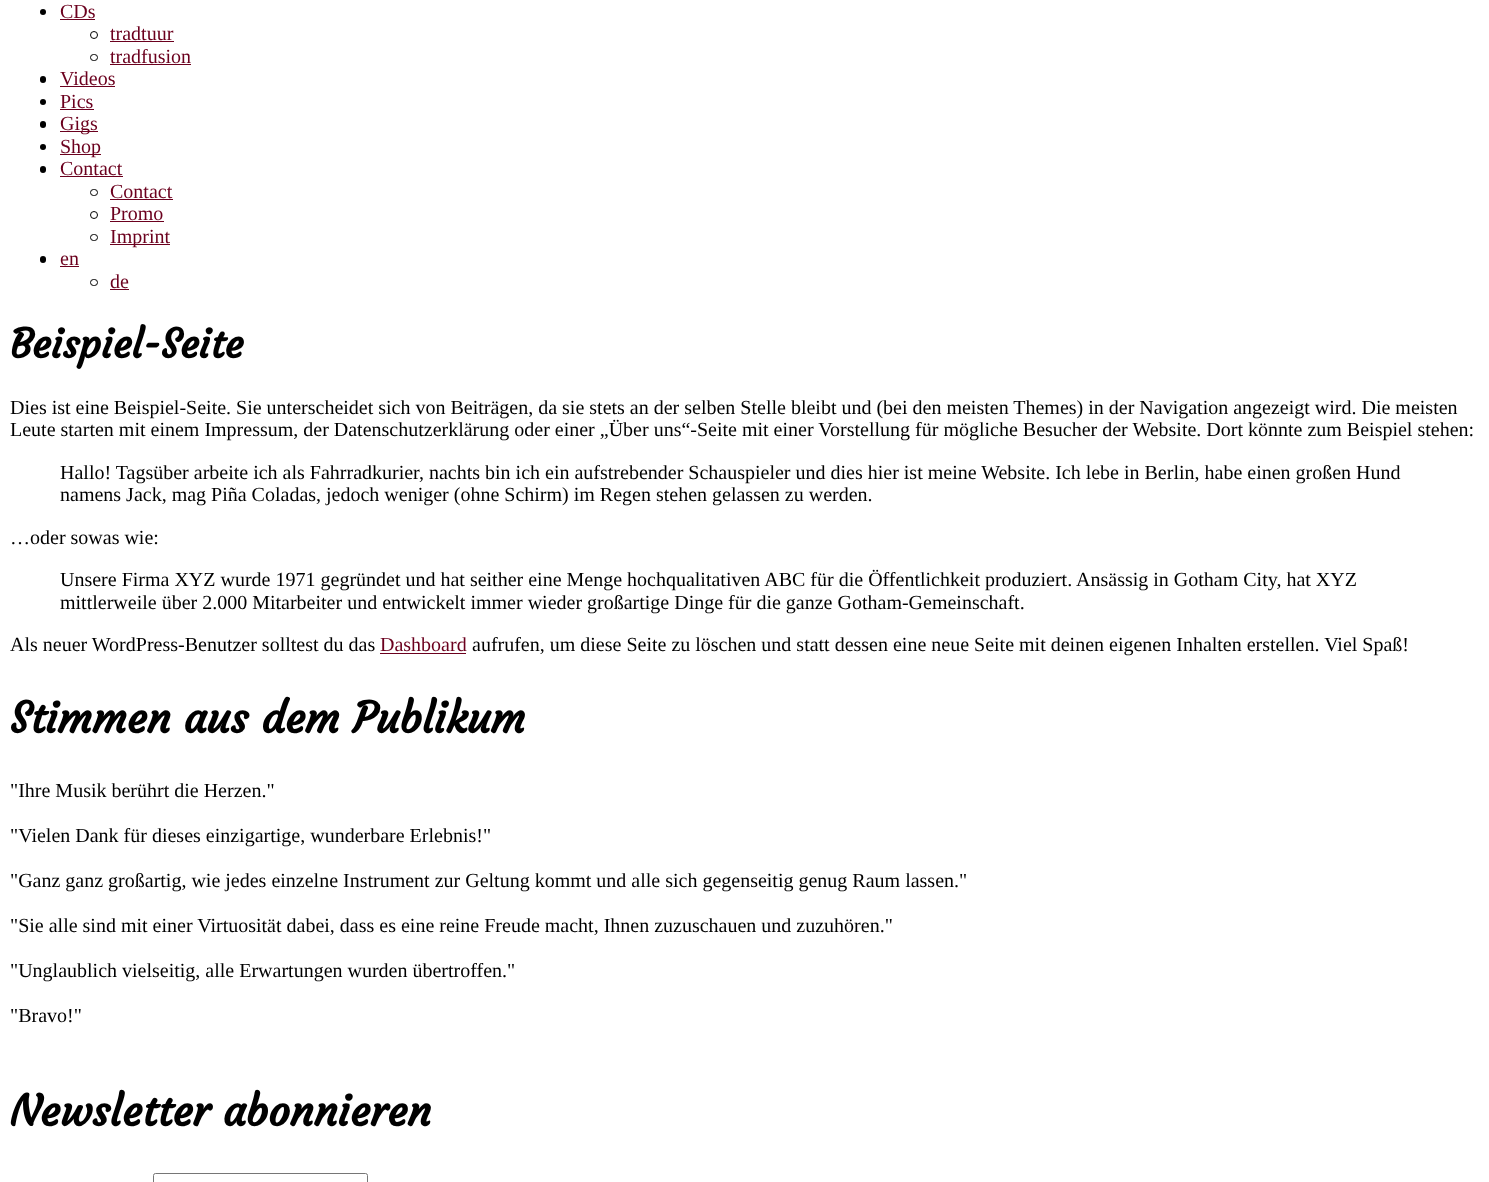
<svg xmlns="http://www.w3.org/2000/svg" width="1489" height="1182">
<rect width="100%" height="100%" fill="#fff"/>
<circle cx="43" cy="12" r="3" fill="#000"/>
<text x="60" y="18" style="font-family:Liberation Serif;font-size:20px;fill:#6b001e">CDs</text>
<rect x="60" y="19" width="35" height="1" fill="#6b001e"/>
<circle cx="94" cy="35" r="3.5" fill="none" stroke="#000"/>
<text x="110" y="40" style="font-family:Liberation Serif;font-size:20px;fill:#6b001e">tradtuur</text>
<rect x="110" y="41" width="64" height="1" fill="#6b001e"/>
<rect x="90.5" y="54.5" width="7" height="6" rx="3" fill="none" stroke="#000"/>
<text x="110" y="63" style="font-family:Liberation Serif;font-size:20px;fill:#6b001e">tradfusion</text>
<rect x="110" y="64" width="81" height="1" fill="#6b001e"/>
<rect x="40" y="76" width="6" height="7" rx="3" fill="#000"/>
<text x="60" y="85" style="font-family:Liberation Serif;font-size:20px;fill:#6b001e">Videos</text>
<rect x="60" y="86" width="55" height="1" fill="#6b001e"/>
<circle cx="43" cy="102" r="3" fill="#000"/>
<text x="60" y="108" style="font-family:Liberation Serif;font-size:20px;fill:#6b001e">Pics</text>
<rect x="60" y="109" width="34" height="1" fill="#6b001e"/>
<rect x="40" y="121" width="6" height="7" rx="3" fill="#000"/>
<rect x="60" y="131" width="38" height="1" fill="#6b001e"/>
<text x="60" y="130" style="font-family:Liberation Serif;font-size:20px;fill:#6b001e">Gigs</text>
<circle cx="43" cy="147" r="3" fill="#000"/>
<rect x="60" y="154" width="41" height="1" fill="#6b001e"/>
<text x="60" y="153" style="font-family:Liberation Serif;font-size:20px;fill:#6b001e">Shop</text>
<rect x="40" y="166" width="6" height="7" rx="3" fill="#000"/>
<text x="60" y="175" style="font-family:Liberation Serif;font-size:20px;fill:#6b001e">Contact</text>
<rect x="60" y="176" width="63" height="1" fill="#6b001e"/>
<rect x="90.5" y="189.5" width="7" height="6" rx="3" fill="none" stroke="#000"/>
<text x="110" y="198" style="font-family:Liberation Serif;font-size:20px;fill:#6b001e">Contact</text>
<rect x="110" y="199" width="63" height="1" fill="#6b001e"/>
<circle cx="94" cy="215" r="3.5" fill="none" stroke="#000"/>
<text x="110" y="220" style="font-family:Liberation Serif;font-size:20px;fill:#6b001e">Promo</text>
<rect x="110" y="221" width="54" height="1" fill="#6b001e"/>
<rect x="90.5" y="234.5" width="7" height="6" rx="3" fill="none" stroke="#000"/>
<rect x="110" y="244" width="60" height="1" fill="#6b001e"/>
<text x="110" y="243" style="font-family:Liberation Serif;font-size:20px;fill:#6b001e">Imprint</text>
<rect x="40" y="256" width="6" height="7" rx="3" fill="#000"/>
<text x="60" y="265" style="font-family:Liberation Serif;font-size:20px;fill:#6b001e">en</text>
<rect x="60" y="266" width="19" height="1" fill="#6b001e"/>
<rect x="90.5" y="279.5" width="7" height="6" rx="3" fill="none" stroke="#000"/>
<text x="110" y="288" style="font-family:Liberation Serif;font-size:20px;fill:#6b001e">de</text>
<rect x="110" y="289" width="19" height="1" fill="#6b001e"/>
<text x="10" y="358" style="font-family:Courgette;font-size:40px;font-weight:bold;fill:#000">Beispiel-Seite</text>
<text x="10" y="414" style="font-family:Liberation Serif;font-size:20px;fill:#000">Dies ist eine Beispiel-Seite. Sie unterscheidet sich von Beiträgen, da sie stets an der selben Stelle bleibt und (bei den meisten Themes) in der Navigation angezeigt wird. Die meisten</text>
<text x="10" y="436" style="font-family:Liberation Serif;font-size:20px;fill:#000">Leute starten mit einem Impressum, der Datenschutzerklärung oder einer „Über uns“-Seite mit einer Vorstellung für mögliche Besucher der Website. Dort könnte zum Beispiel stehen:</text>
<text x="60" y="479" style="font-family:Liberation Serif;font-size:20px;fill:#000">Hallo! Tagsüber arbeite ich als Fahrradkurier, nachts bin ich ein aufstrebender Schauspieler und dies hier ist meine Website. Ich lebe in Berlin, habe einen großen Hund</text>
<text x="60" y="501" style="font-family:Liberation Serif;font-size:20px;fill:#000">namens Jack, mag Piña Coladas, jedoch weniger (ohne Schirm) im Regen stehen gelassen zu werden.</text>
<text x="10" y="544" style="font-family:Liberation Serif;font-size:20px;fill:#000">…oder sowas wie:</text>
<text x="60" y="586" style="font-family:Liberation Serif;font-size:20px;fill:#000">Unsere Firma XYZ wurde 1971 gegründet und hat seither eine Menge hochqualitativen ABC für die Öffentlichkeit produziert. Ansässig in Gotham City, hat XYZ</text>
<text x="60" y="609" style="font-family:Liberation Serif;font-size:20px;fill:#000">mittlerweile über 2.000 Mitarbeiter und entwickelt immer wieder großartige Dinge für die ganze Gotham-Gemeinschaft.</text>
<text x="10" y="651" style="font-family:Liberation Serif;font-size:20px;fill:#000">Als neuer WordPress-Benutzer solltest du das</text>
<text x="380" y="651" style="font-family:Liberation Serif;font-size:20px;fill:#6b001e">Dashboard</text>
<rect x="380" y="653" width="86" height="1" fill="#6b001e"/>
<text x="472" y="651" style="font-family:Liberation Serif;font-size:20px;fill:#000">aufrufen, um diese Seite zu löschen und statt dessen eine neue Seite mit deinen eigenen Inhalten erstellen. Viel Spaß!</text>
<text x="10" y="733" style="font-family:Courgette;font-size:42.5px;font-weight:bold;fill:#000">Stimmen aus dem Publikum</text>
<text x="10" y="797" style="font-family:Liberation Serif;font-size:20px;fill:#000">"Ihre Musik berührt die Herzen."</text>
<text x="10" y="842" style="font-family:Liberation Serif;font-size:20px;fill:#000">"Vielen Dank für dieses einzigartige, wunderbare Erlebnis!"</text>
<text x="10" y="887" style="font-family:Liberation Serif;font-size:20px;fill:#000">"Ganz ganz großartig, wie jedes einzelne Instrument zur Geltung kommt und alle sich gegenseitig genug Raum lassen."</text>
<text x="10" y="932" style="font-family:Liberation Serif;font-size:20px;fill:#000">"Sie alle sind mit einer Virtuosität dabei, dass es eine reine Freude macht, Ihnen zuzuschauen und zuzuhören."</text>
<text x="10" y="977" style="font-family:Liberation Serif;font-size:20px;fill:#000">"Unglaublich vielseitig, alle Erwartungen wurden übertroffen."</text>
<text x="10" y="1022" style="font-family:Liberation Serif;font-size:20px;fill:#000">"Bravo!"</text>
<text x="10" y="1126" style="font-family:Courgette;font-size:42.5px;font-weight:bold;fill:#000">Newsletter abonnieren</text>
<rect x="153.5" y="1173.5" width="214" height="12" rx="2" fill="none" stroke="#767676"/>
</svg>
